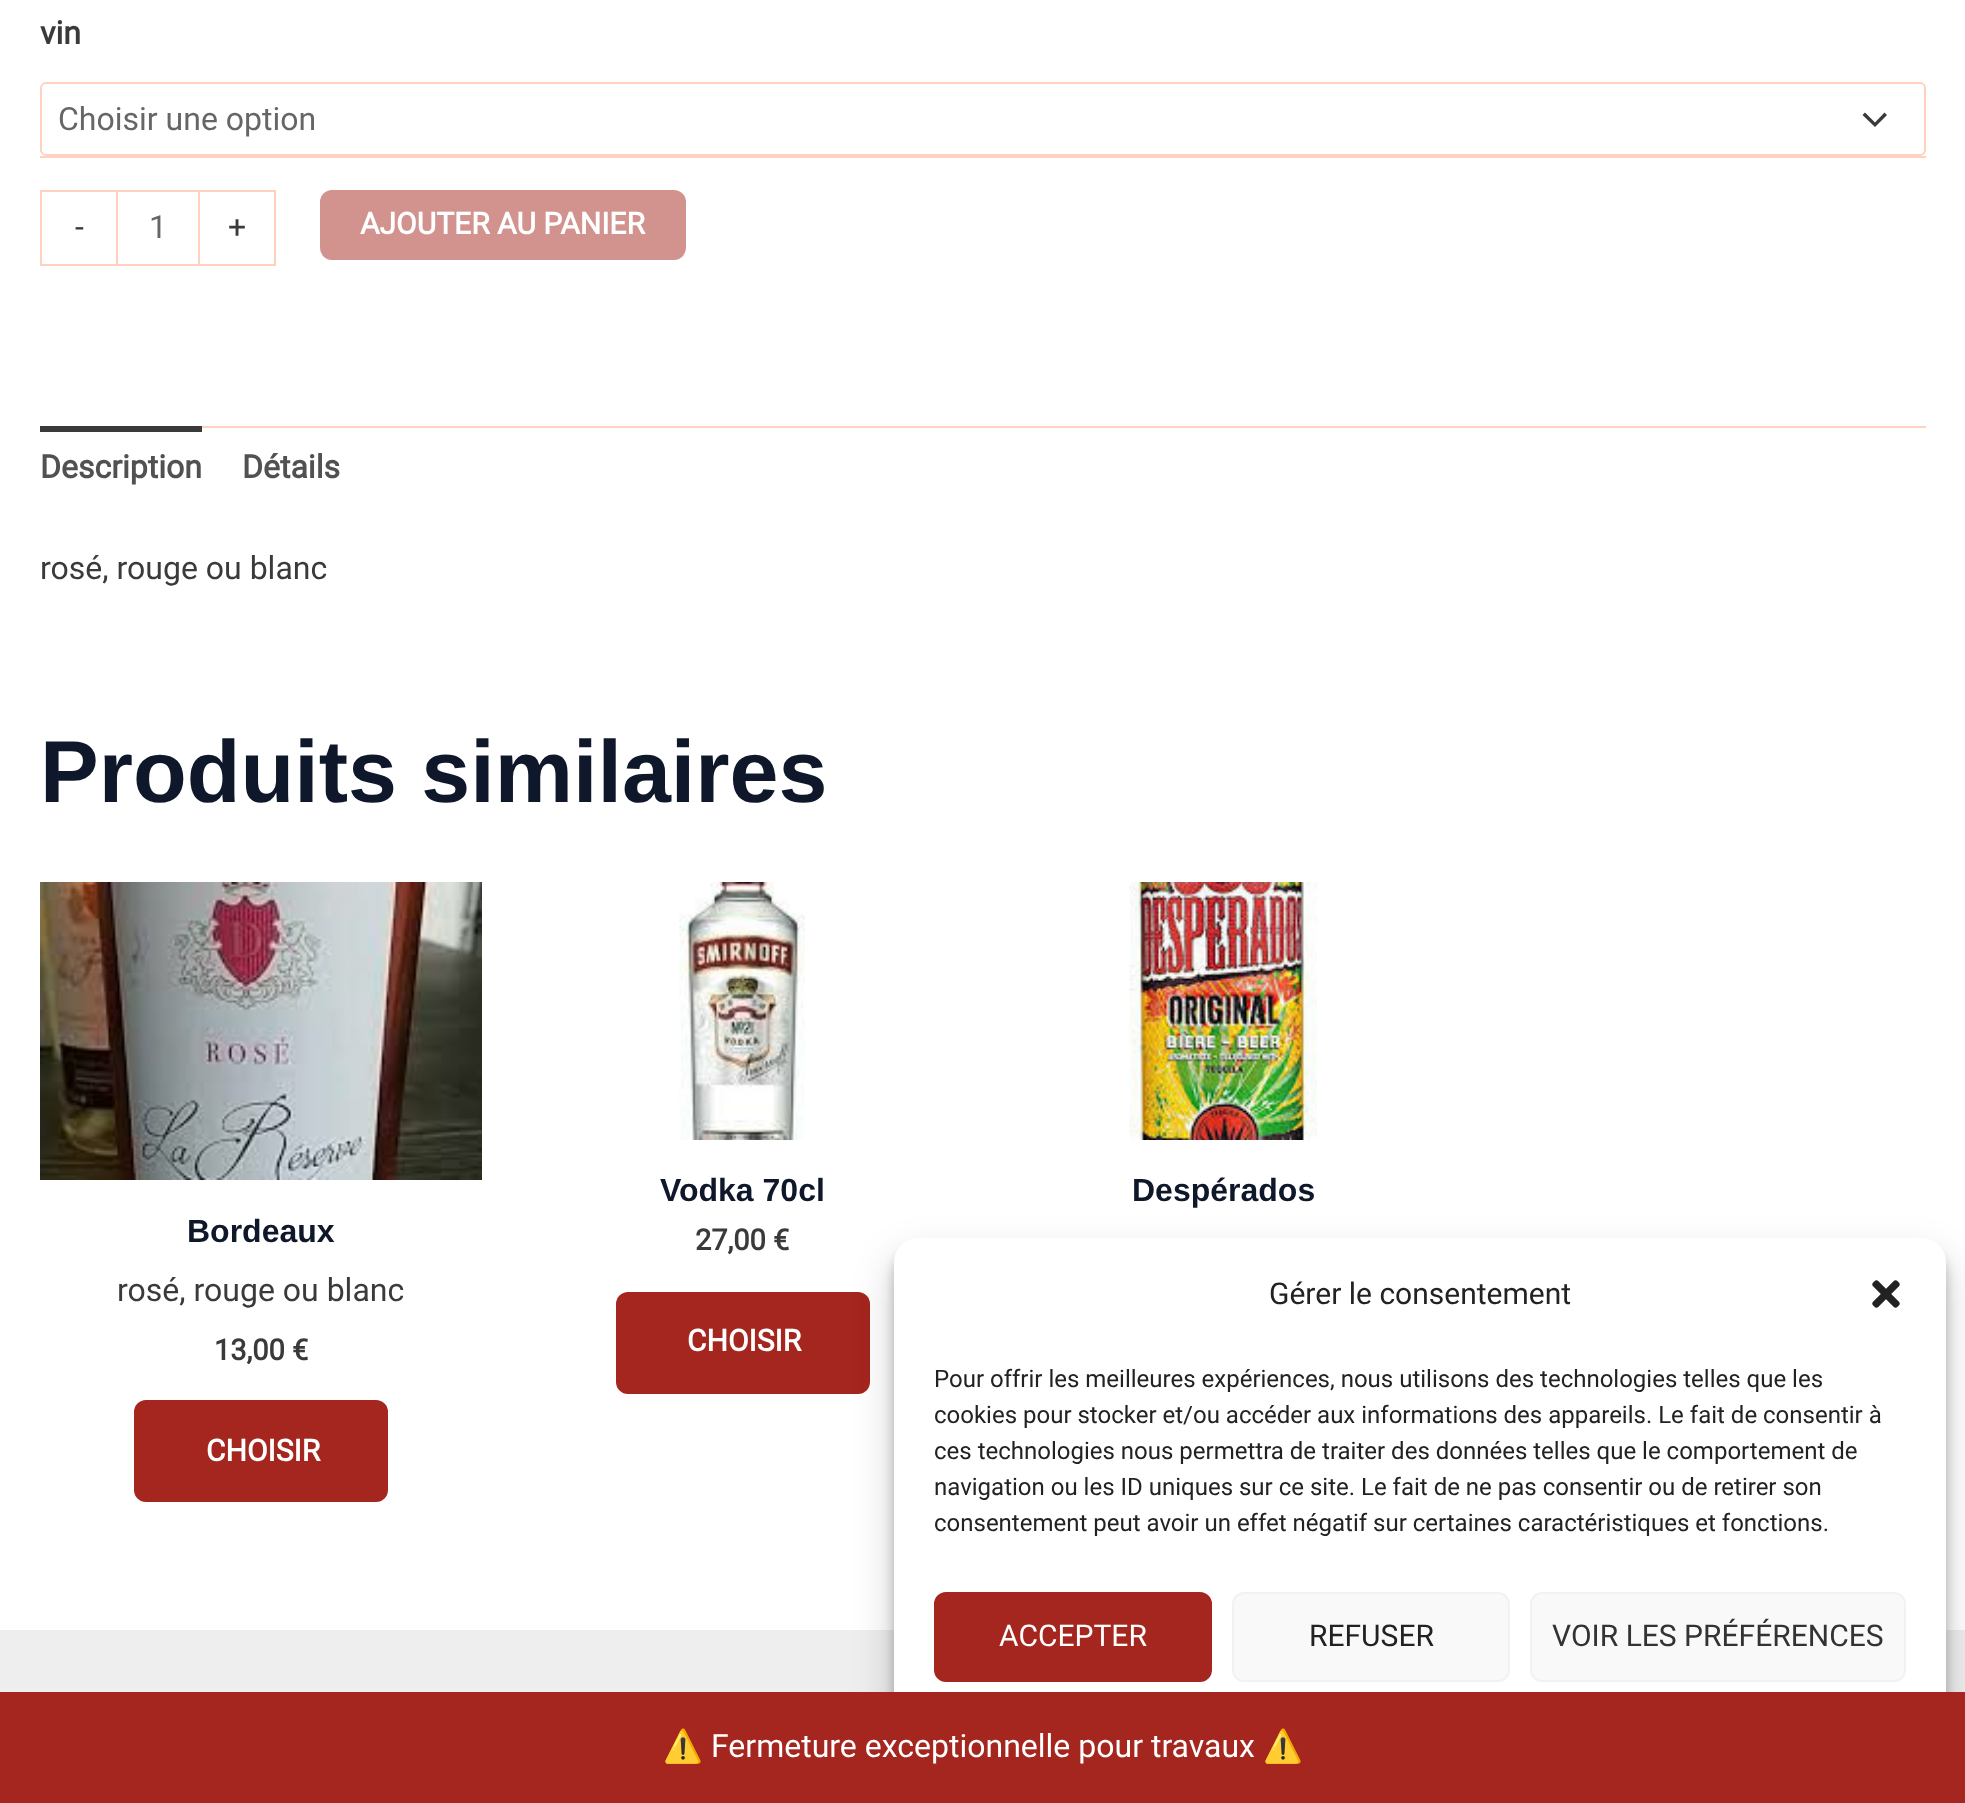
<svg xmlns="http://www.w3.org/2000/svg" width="1965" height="1803">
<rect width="100%" height="100%" fill="#fff"/>
<rect x="40" y="156" width="1886" height="2" fill="#ffd1bf"/>
<text x="40" y="44" style="font-family:Roboto;font-size:32px;font-weight:bold;fill:#3a3a3a">vin</text>
<path d="M1862.5 115l12.5 12l12-12l-2.5-2.5l-9.5 10l-10-10z" fill="#3a3a3a"/>
<rect x="41" y="83" width="1884" height="72" rx="5" fill="none" stroke="#ffd1bf" stroke-width="2"/>
<text x="58" y="130" style="font-family:Roboto;font-size:32px;fill:#666">Choisir une option</text>
<rect x="40" y="190" width="76" height="2" fill="#ffd1bf"/>
<rect x="40" y="264" width="76" height="2" fill="#ffd1bf"/>
<rect x="40" y="190" width="2" height="76" fill="#ffd1bf"/>
<text x="75" y="238" style="font-family:Roboto;font-size:32px;fill:#3a3a3a">-</text>
<rect x="117" y="191" width="82" height="74" fill="none" stroke="#ffd1bf" stroke-width="2"/>
<text x="149" y="238" style="font-family:Roboto;font-size:32px;fill:#666">1</text>
<rect x="200" y="190" width="76" height="2" fill="#ffd1bf"/>
<rect x="274" y="190" width="2" height="76" fill="#ffd1bf"/>
<rect x="200" y="264" width="76" height="2" fill="#ffd1bf"/>
<text x="228" y="238" style="font-family:Roboto;font-size:32px;fill:#3a3a3a">+</text>
<rect x="320" y="190" width="366" height="70" rx="12" fill="#d2938f"/>
<text x="360" y="234" style="font-family:Roboto;font-size:30px;font-weight:bold;fill:#fff">AJOUTER AU PANIER</text>
<rect x="202" y="426" width="1724" height="2" fill="#ffd1bf"/>
<rect x="40" y="426" width="162" height="6" fill="#3a3a3a"/>
<text x="40" y="478" style="font-family:Roboto;font-size:32px;font-weight:bold;fill:#515151">Description</text>
<text x="242" y="478" style="font-family:Roboto;font-size:32px;font-weight:bold;fill:#515151">Détails</text>
<text x="40" y="579" style="font-family:Roboto;font-size:32px;fill:#3a3a3a">rosé, rouge ou blanc</text>
<text x="40" y="802" style="font-family:Liberation Sans;font-size:88px;font-weight:bold;fill:#0f172a">Produits similaires</text>
<image x="679" y="882" width="126" height="258" href="media/1.png"/>
<text x="660" y="1201" style="font-family:Liberation Sans;font-size:32px;font-weight:bold;fill:#0f172a">Vodka 70cl</text>
<text x="695" y="1250" style="font-family:Roboto;font-size:29px;font-weight:bold;fill:#3a3a3a">27,00 €</text>
<rect x="616" y="1292" width="254" height="102" rx="12" fill="#a4261e"/>
<text x="687" y="1351" style="font-family:Roboto;font-size:30px;font-weight:bold;fill:#fff">CHOISIR</text>
<image x="1129" y="882" width="188" height="258" href="media/2.png"/>
<text x="1132" y="1201" style="font-family:Liberation Sans;font-size:32px;font-weight:bold;fill:#0f172a">Despérados</text>
<image x="40" y="882" width="442" height="298" href="media/3.png"/>
<text x="187" y="1242" style="font-family:Liberation Sans;font-size:32px;font-weight:bold;fill:#0f172a">Bordeaux</text>
<text x="117" y="1301" style="font-family:Roboto;font-size:32px;fill:#3a3a3a">rosé, rouge ou blanc</text>
<text x="214" y="1360" style="font-family:Roboto;font-size:29px;font-weight:bold;fill:#3a3a3a">13,00 €</text>
<rect x="134" y="1400" width="254" height="102" rx="12" fill="#a4261e"/>
<text x="206" y="1461" style="font-family:Roboto;font-size:30px;font-weight:bold;fill:#fff">CHOISIR</text>
<rect y="1630" width="1965" height="62" fill="#eee"/>
<rect x="894" y="1250" width="1052" height="546" rx="24" fill="#0000003b" filter="blur(6px)"/>
<rect x="894" y="1258" width="1052" height="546" rx="24" fill="#00000030" filter="blur(20px)"/>
<rect x="894" y="1238" width="1052" height="546" rx="24" fill="#fff"/>
<text x="1269" y="1304" style="font-family:Roboto;font-size:30px;fill:#222">Gérer le consentement</text>
<image x="1872" y="1280" width="28" height="28" href="media/4.png"/>
<text x="934" y="1387" style="font-family:Roboto;font-size:24px;fill:#222">Pour offrir les meilleures expériences, nous utilisons des technologies telles que les</text>
<text x="934" y="1423" style="font-family:Roboto;font-size:24px;fill:#222">cookies pour stocker et/ou accéder aux informations des appareils. Le fait de consentir à</text>
<text x="934" y="1459" style="font-family:Roboto;font-size:24px;fill:#222">ces technologies nous permettra de traiter des données telles que le comportement de</text>
<text x="934" y="1495" style="font-family:Roboto;font-size:24px;fill:#222">navigation ou les ID uniques sur ce site. Le fait de ne pas consentir ou de retirer son</text>
<text x="934" y="1531" style="font-family:Roboto;font-size:24px;fill:#222">consentement peut avoir un effet négatif sur certaines caractéristiques et fonctions.</text>
<rect x="935" y="1593" width="276" height="88" rx="11" fill="#a4261e" stroke="#a4261e" stroke-width="2"/>
<text x="999" y="1646" style="font-family:Roboto;font-size:30px;fill:#fff">ACCEPTER</text>
<rect x="1233" y="1593" width="276" height="88" rx="11" fill="#f9f9f9" stroke="#f2f2f2" stroke-width="2"/>
<text x="1309" y="1646" style="font-family:Roboto;font-size:30px;fill:#222">REFUSER</text>
<rect x="1531" y="1593" width="374" height="88" rx="11" fill="#f9f9f9" stroke="#f2f2f2" stroke-width="2"/>
<text x="1552" y="1646" style="font-family:Roboto;font-size:30px;fill:#333">VOIR LES PRÉFÉRENCES</text>
<rect y="1692" width="1965" height="111" fill="#a4261e"/>
<text x="663" y="1757" style="font-family:Noto Color Emoji;font-size:32px;fill:#fff">⚠️</text>
<text x="711" y="1757" style="font-family:Roboto;font-size:32px;fill:#fff">Fermeture exceptionnelle pour travaux</text>
<text x="1263" y="1757" style="font-family:Noto Color Emoji;font-size:32px;fill:#fff">⚠️</text>
</svg>
